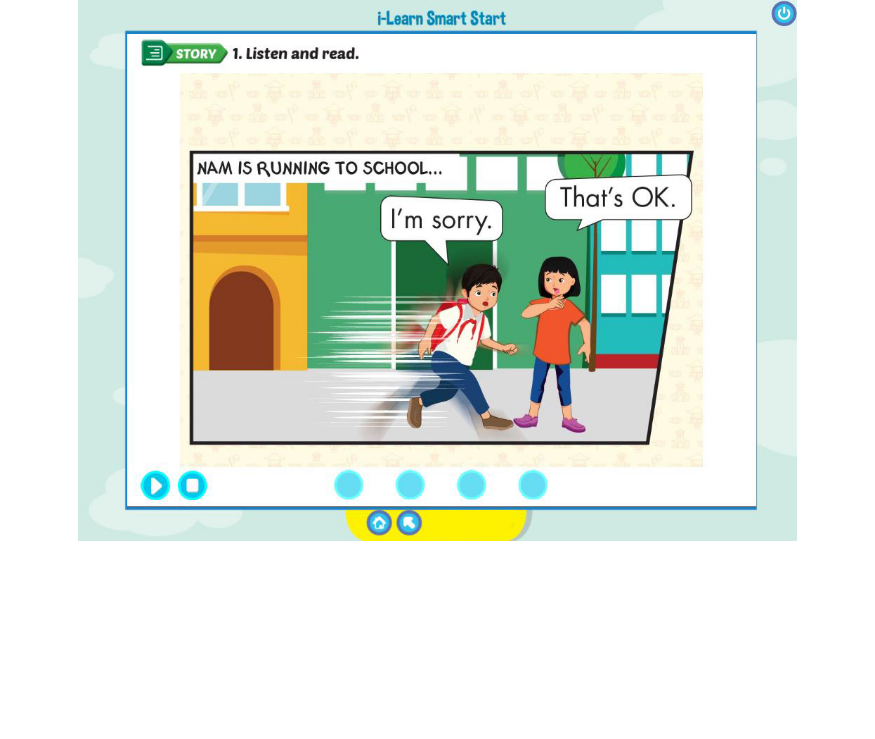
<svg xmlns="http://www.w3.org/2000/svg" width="875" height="739">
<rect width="100%" height="100%" fill="#fff"/>
<image x="78" y="0" width="719" height="541" href="media/1.png"/>
</svg>
